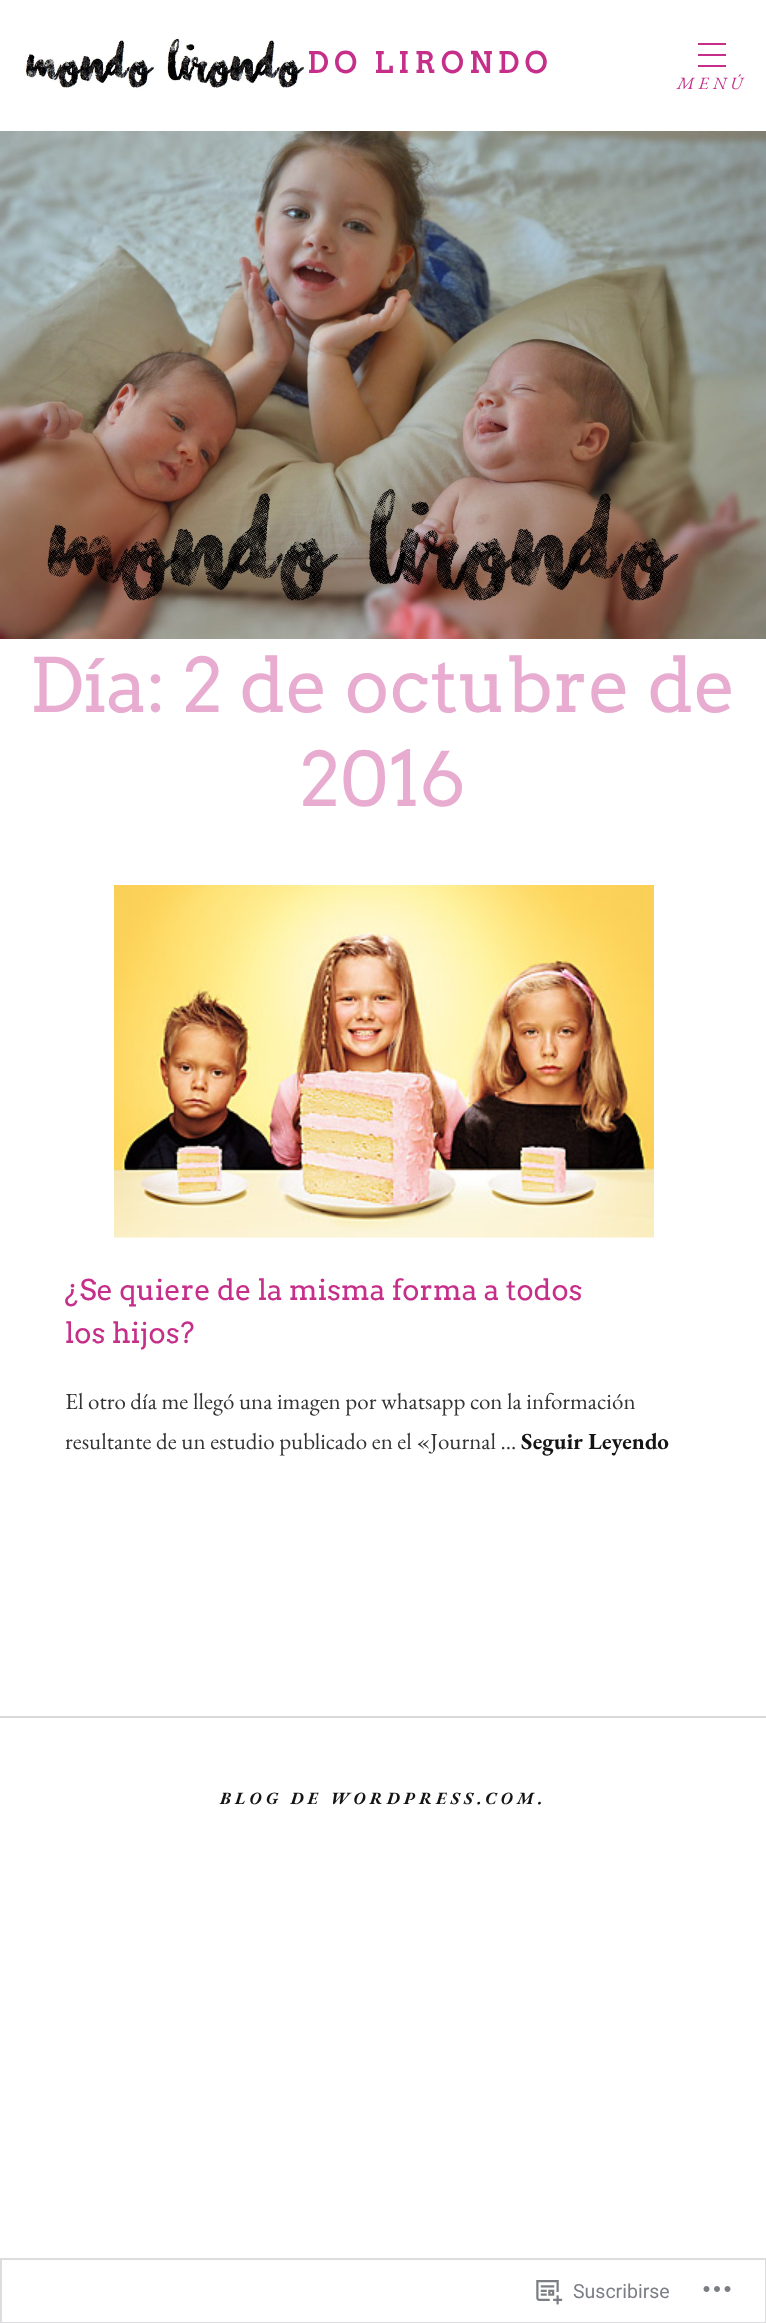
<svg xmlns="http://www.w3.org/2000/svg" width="766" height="2323">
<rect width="100%" height="100%" fill="#fff"/>
<text x="307" y="73" style="font-family:Arvo;font-size:28.75px;font-weight:bold;letter-spacing:5.75px;fill:#c52f89">DO LIRONDO</text>
<image x="25" y="37" width="285" height="52" href="media/1.png"/>
<rect x="698" y="43" width="28" height="2" fill="#c52f89"/>
<rect x="698" y="54" width="28" height="2" fill="#c52f89"/>
<rect x="698" y="65" width="28" height="2" fill="#c52f89"/>
<text x="677" y="89" style="font-family:EB Garamond;font-size:17.25px;font-style:italic;letter-spacing:4.3px;fill:#c52f89">MENÚ</text>
<image x="0" y="131" width="766" height="508" href="media/2.png"/>
<text x="29" y="712" style="font-family:Arvo;font-size:74.75px;fill:#e8acd0">Día: 2 de octubre de</text>
<text x="300" y="806" style="font-family:Arvo;font-size:74.75px;fill:#e8acd0">2016</text>
<image x="114" y="885" width="540" height="353" href="media/3.png"/>
<text x="65" y="1300" style="font-family:Arvo;font-size:28.75px;fill:#c52f89">¿Se quiere de la misma forma a todos</text>
<text x="65" y="1343" style="font-family:Arvo;font-size:28.75px;fill:#c52f89">los hijos?</text>
<text x="65" y="1409" style="font-family:EB Garamond;font-size:23px;fill:#333">El otro día me llegó una imagen por whatsapp con la información</text>
<text x="65" y="1449" style="font-family:EB Garamond;font-size:23px;fill:#333">resultante de un estudio publicado en el «Journal …</text>
<text x="521" y="1449" style="font-family:EB Garamond;font-size:23px;font-weight:bold;fill:#141414">Seguir Leyendo</text>
<rect y="1716" width="766" height="2" fill="#d9d9d9"/>
<text x="220" y="1804" style="font-family:EB Garamond;font-size:17.25px;font-weight:bold;font-style:italic;letter-spacing:4.3px;fill:#141414">BLOG DE WORDPRESS.COM.</text>
<rect x="1" y="2259" width="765" height="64" fill="none" stroke="#dddddf" stroke-width="2"/>
<image x="536" y="2280" width="27" height="25" href="media/4.png"/>
<text x="573" y="2298" style="font-family:Roboto;font-size:19.5px;fill:#7b7f85">Suscribirse</text>
<image x="703" y="2286" width="28" height="6" href="media/5.png"/>
</svg>
